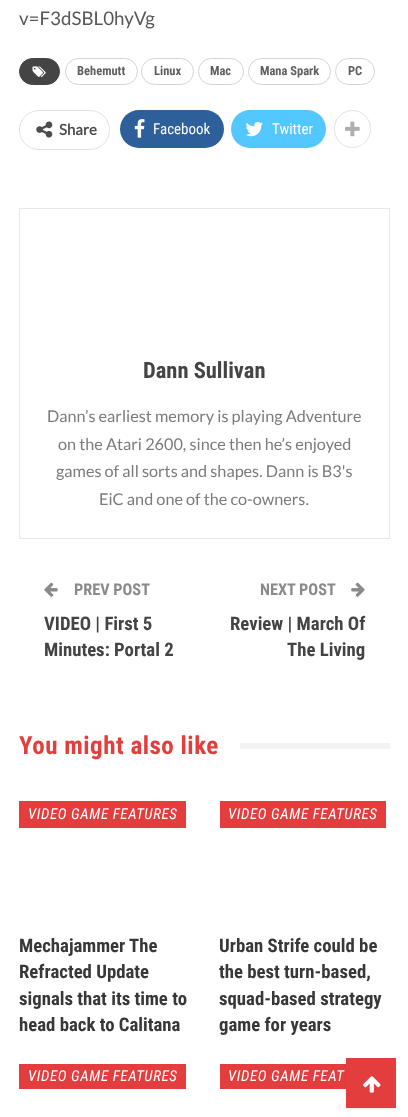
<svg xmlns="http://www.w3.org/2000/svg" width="408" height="1117">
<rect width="100%" height="100%" fill="#fff"/>
<text x="19" y="25" style="font-family:Lato;font-size:18.75px;fill:#585858">v=F3dSBL0hyVg</text>
<rect x="19.5" y="58.5" width="40" height="26" rx="13" fill="#444" stroke="#444"/>
<image x="32" y="66" width="14" height="11" href="media/1.png"/>
<rect x="65.5" y="58.5" width="72" height="26" rx="13" fill="none" stroke="#d4d4d4"/>
<text x="77" y="75" style="font-family:Roboto Condensed;font-size:12.5px;font-weight:bold;fill:#5f5f5f">Behemutt</text>
<rect x="141.5" y="58.5" width="52" height="26" rx="13" fill="none" stroke="#d4d4d4"/>
<text x="154" y="75" style="font-family:Roboto Condensed;font-size:12.5px;font-weight:bold;fill:#5f5f5f">Linux</text>
<rect x="198.5" y="58.5" width="45" height="26" rx="13" fill="none" stroke="#d4d4d4"/>
<text x="210" y="75" style="font-family:Roboto Condensed;font-size:12.5px;font-weight:bold;fill:#5f5f5f">Mac</text>
<rect x="248.5" y="58.5" width="82" height="26" rx="13" fill="none" stroke="#d4d4d4"/>
<text x="260" y="75" style="font-family:Roboto Condensed;font-size:12.5px;font-weight:bold;fill:#5f5f5f">Mana Spark</text>
<rect x="335.5" y="58.5" width="39" height="26" rx="13" fill="none" stroke="#d4d4d4"/>
<text x="348" y="75" style="font-family:Roboto Condensed;font-size:12.5px;font-weight:bold;fill:#5f5f5f">PC</text>
<rect x="19.5" y="110.5" width="90" height="39" rx="19.5" fill="none" stroke="#e2e2e2"/>
<image x="36" y="121" width="17" height="17" href="media/2.png"/>
<text x="59" y="135" style="font-family:Lato;font-size:15px;font-weight:bold;fill:#4d4d4d">Share</text>
<rect x="120" y="110" width="104" height="38" rx="19" fill="#2d5f9a"/>
<image x="134" y="119" width="11" height="19" href="media/3.png"/>
<text x="153" y="134" style="font-family:Roboto Condensed;font-size:15px;fill:#fff">Facebook</text>
<rect x="231" y="110" width="95" height="38" rx="19" fill="#53c7ff"/>
<image x="245" y="122" width="18" height="15" href="media/4.png"/>
<text x="272" y="134" style="font-family:Roboto Condensed;font-size:15px;fill:#fff">Twitter</text>
<rect x="334.5" y="110.5" width="36" height="37" rx="18" fill="none" stroke="#e2e2e2"/>
<image x="345" y="121" width="15" height="16" href="media/5.png"/>
<rect x="19.5" y="208.5" width="370" height="330" fill="none" stroke="#e8e8e8"/>
<text x="143" y="378" style="font-family:Roboto Condensed;font-size:22.5px;font-weight:bold;fill:#444">Dann Sullivan</text>
<text x="47" y="422" style="font-family:Lato;font-size:16.25px;fill:#7b7b7b">Dann’s earliest memory is playing Adventure</text>
<text x="58" y="450" style="font-family:Lato;font-size:16.25px;fill:#7b7b7b">on the Atari 2600, since then he’s enjoyed</text>
<text x="56" y="477" style="font-family:Lato;font-size:16.25px;fill:#7b7b7b">games of all sorts and shapes. Dann is B3's</text>
<text x="99" y="505" style="font-family:Lato;font-size:16.25px;fill:#7b7b7b">EiC and one of the co-owners.</text>
<image x="44" y="582" width="14" height="15" href="media/6.png"/>
<text x="74" y="595" style="font-family:Roboto Condensed;font-size:16.25px;font-weight:bold;fill:#8a8a8a">PREV POST</text>
<text x="44" y="630" style="font-family:Roboto Condensed;font-size:18.75px;font-weight:bold;fill:#444">VIDEO | First 5</text>
<text x="44" y="656" style="font-family:Roboto Condensed;font-size:18.75px;font-weight:bold;fill:#444">Minutes: Portal 2</text>
<text x="260" y="595" style="font-family:Roboto Condensed;font-size:16.25px;font-weight:bold;fill:#8a8a8a">NEXT POST</text>
<image x="351" y="582" width="14" height="15" href="media/7.png"/>
<text x="230" y="630" style="font-family:Roboto Condensed;font-size:18.75px;font-weight:bold;fill:#444">Review | March Of</text>
<text x="287" y="656" style="font-family:Roboto Condensed;font-size:18.75px;font-weight:bold;fill:#444">The Living</text>
<text x="19" y="754" style="font-family:Roboto Condensed;font-size:25px;font-weight:bold;letter-spacing:0.5px;fill:#e33d3d">You might also like</text>
<rect x="240" y="743" width="150" height="6" fill="#f2f2f2"/>
<rect x="19" y="801" width="167" height="27" fill="#e33d3d"/>
<text x="28" y="819" style="font-family:Roboto Condensed;font-size:15px;font-style:italic;letter-spacing:0.6px;fill:#fff">VIDEO GAME FEATURES</text>
<text x="19" y="952" style="font-family:Roboto Condensed;font-size:18.75px;font-weight:bold;fill:#383838">Mechajammer The</text>
<text x="19" y="978" style="font-family:Roboto Condensed;font-size:18.75px;font-weight:bold;fill:#383838">Refracted Update</text>
<text x="19" y="1005" style="font-family:Roboto Condensed;font-size:18.75px;font-weight:bold;fill:#383838">signals that its time to</text>
<text x="19" y="1031" style="font-family:Roboto Condensed;font-size:18.75px;font-weight:bold;fill:#383838">head back to Calitana</text>
<rect x="220" y="801" width="166" height="27" fill="#e33d3d"/>
<text x="228" y="819" style="font-family:Roboto Condensed;font-size:15px;font-style:italic;letter-spacing:0.6px;fill:#fff">VIDEO GAME FEATURES</text>
<text x="219" y="952" style="font-family:Roboto Condensed;font-size:18.75px;font-weight:bold;fill:#383838">Urban Strife could be</text>
<text x="219" y="978" style="font-family:Roboto Condensed;font-size:18.75px;font-weight:bold;fill:#383838">the best turn-based,</text>
<text x="219" y="1005" style="font-family:Roboto Condensed;font-size:18.75px;font-weight:bold;fill:#383838">squad-based strategy</text>
<text x="219" y="1031" style="font-family:Roboto Condensed;font-size:18.75px;font-weight:bold;fill:#383838">game for years</text>
<rect x="19" y="1064" width="167" height="25" fill="#e33d3d"/>
<text x="28" y="1081" style="font-family:Roboto Condensed;font-size:15px;font-style:italic;letter-spacing:0.6px;fill:#fff">VIDEO GAME FEATURES</text>
<rect x="220" y="1064" width="126" height="25" fill="#e33d3d"/>
<text x="228" y="1081" style="font-family:Roboto Condensed;font-size:15px;font-style:italic;letter-spacing:0.6px;fill:#fff">VIDEO GAME FEAT</text>
<rect x="346" y="1059" width="50" height="50" fill="#00000017" filter="blur(1px)"/>
<rect x="346" y="1058" width="50" height="50" fill="#e33d3d"/>
<image x="363" y="1076" width="18" height="17" href="media/8.png"/>
</svg>
